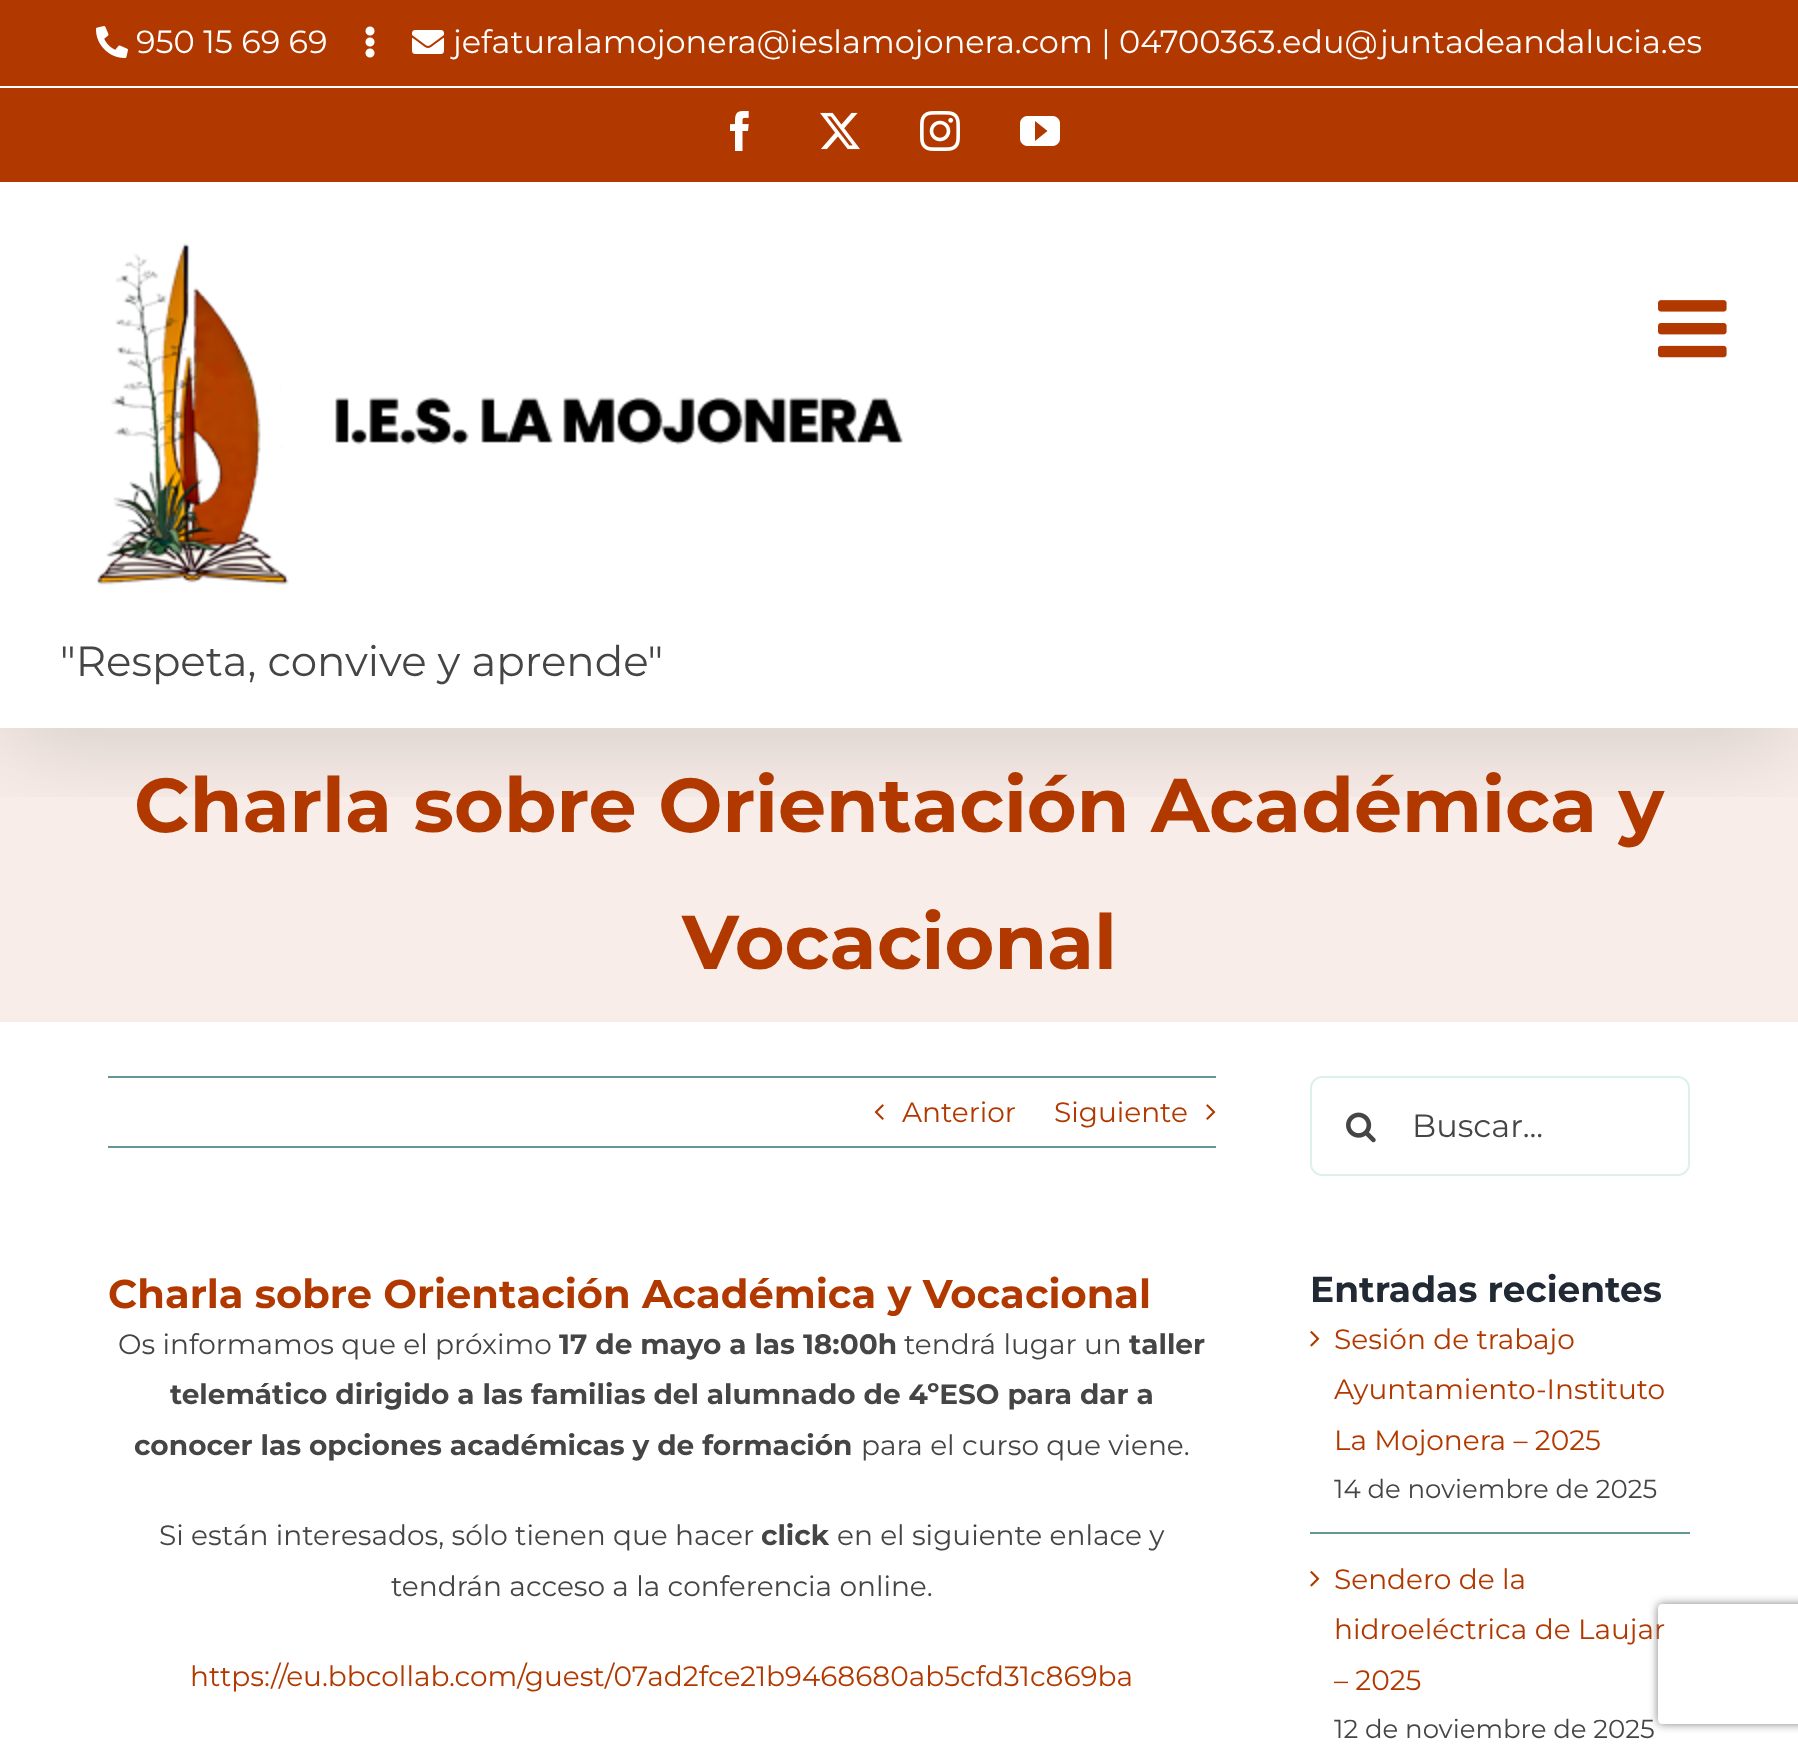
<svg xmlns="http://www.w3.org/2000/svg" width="1798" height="1751">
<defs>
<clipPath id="clip1"><rect x="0" y="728" width="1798" height="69"/></clipPath>
<clipPath id="clip2"><path d="M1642 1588h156v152h-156zm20 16h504c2 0 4 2 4 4v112c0 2-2 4-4 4h-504c-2 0-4-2-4-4v-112c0-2 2-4 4-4z" clip-rule="evenodd"/></clipPath>
</defs>
<rect width="100%" height="100%" fill="#fff"/>
<rect y="728" width="1798" height="294" fill="#f8ede8"/>
<g clip-path="url(#clip1)">
<rect x="4" y="24" width="1790" height="720" fill="#00000024" filter="blur(50px)"/>
</g>
<rect width="1798" height="182" fill="#b13900"/>
<rect y="86" width="1798" height="2" fill="#fff"/>
<image x="96" y="26" width="32" height="32" href="media/1.png"/>
<text x="136" y="53" style="font-family:Montserrat;font-size:32px;fill:#fff">950 15 69 69</text>
<image x="365" y="26" width="10" height="32" href="media/2.png"/>
<image x="412" y="30" width="32" height="24" href="media/3.png"/>
<text x="453" y="53" style="font-family:Montserrat;font-size:32px;fill:#fff">jefaturalamojonera@ieslamojonera.com | 04700363.edu@juntadeandalucia.es</text>
<image x="730" y="111" width="19" height="40" href="media/4.png"/>
<image x="820" y="112" width="40" height="38" href="media/5.png"/>
<image x="920" y="111" width="40" height="40" href="media/6.png"/>
<image x="1020" y="116" width="40" height="30" href="media/7.png"/>
<image x="1658" y="300" width="69" height="58" href="media/8.png"/>
<image x="97" y="243" width="806" height="342" href="media/9.png"/>
<text x="60" y="676" style="font-family:Montserrat;font-size:42px;fill:#454545">"Respeta, convive y aprende"</text>
<text x="134" y="832" style="font-family:Montserrat;font-size:76.2px;font-weight:bold;fill:#b13900">Charla sobre Orientación Académica y</text>
<text x="682" y="969" style="font-family:Montserrat;font-size:76.2px;font-weight:bold;fill:#b13900">Vocacional</text>
<rect x="108" y="1076" width="1108" height="2" fill="#649793"/>
<rect x="108" y="1146" width="1108" height="2" fill="#649793"/>
<image x="874" y="1104" width="10" height="16" href="media/10.png"/>
<text x="902" y="1122" style="font-family:Montserrat;font-size:28px;fill:#b13900">Anterior</text>
<text x="1054" y="1122" style="font-family:Montserrat;font-size:28px;fill:#b13900">Siguiente</text>
<image x="1206" y="1104" width="10" height="16" href="media/11.png"/>
<text x="108" y="1308" style="font-family:Montserrat;font-size:40px;font-weight:bold;fill:#b13900">Charla sobre Orientación Académica y Vocacional</text>
<text x="118" y="1354" style="font-family:Montserrat;font-size:28px;fill:#454545">Os informamos que el próximo</text>
<text x="559" y="1354" style="font-family:Montserrat;font-size:28px;font-weight:bold;fill:#454545">17 de mayo a las 18:00h</text>
<text x="904" y="1354" style="font-family:Montserrat;font-size:28px;fill:#454545">tendrá lugar un</text>
<text x="1129" y="1354" style="font-family:Montserrat;font-size:28px;font-weight:bold;fill:#454545">taller</text>
<text x="170" y="1404" style="font-family:Montserrat;font-size:28px;font-weight:bold;fill:#454545">telemático dirigido a las familias del alumnado de 4ºESO para dar a</text>
<text x="134" y="1455" style="font-family:Montserrat;font-size:28px;font-weight:bold;fill:#454545">conocer las opciones académicas y de formación</text>
<text x="861" y="1455" style="font-family:Montserrat;font-size:28px;fill:#454545">para el curso que viene.</text>
<text x="159" y="1545" style="font-family:Montserrat;font-size:28px;fill:#454545">Si están interesados, sólo tienen que hacer</text>
<text x="761" y="1545" style="font-family:Montserrat;font-size:28px;font-weight:bold;fill:#454545">click</text>
<text x="837" y="1545" style="font-family:Montserrat;font-size:28px;fill:#454545">en el siguiente enlace y</text>
<text x="391" y="1596" style="font-family:Montserrat;font-size:28px;fill:#454545">tendrán acceso a la conferencia online.</text>
<text x="190" y="1686" style="font-family:Montserrat;font-size:28px;fill:#b13900">https://eu.bbcollab.com/guest/07ad2fce21b9468680ab5cfd31c869ba</text>
<rect x="1311" y="1077" width="378" height="98" rx="11" fill="none" stroke="#def0ee" stroke-width="2"/>
<image x="1346" y="1112" width="30" height="31" href="media/12.png"/>
<text x="1412" y="1137" style="font-family:Montserrat;font-size:32px;fill:#454545">Buscar...</text>
<text x="1310" y="1302" style="font-family:Montserrat;font-size:36px;font-weight:bold;fill:#212934">Entradas recientes</text>
<rect x="1310" y="1532" width="380" height="2" fill="#649793"/>
<image x="1310" y="1331" width="10" height="16" href="media/13.png"/>
<text x="1334" y="1349" style="font-family:Montserrat;font-size:28px;fill:#b13900">Sesión de trabajo</text>
<text x="1334" y="1399" style="font-family:Montserrat;font-size:28px;fill:#b13900">Ayuntamiento-Instituto</text>
<text x="1334" y="1450" style="font-family:Montserrat;font-size:28px;fill:#b13900">La Mojonera – 2025</text>
<text x="1334" y="1498" style="font-family:Montserrat;font-size:26px;fill:#454545">14 de noviembre de 2025</text>
<image x="1310" y="1571" width="10" height="16" href="media/13.png"/>
<text x="1334" y="1589" style="font-family:Montserrat;font-size:28px;fill:#b13900">Sendero de la</text>
<text x="1334" y="1639" style="font-family:Montserrat;font-size:28px;fill:#b13900">hidroeléctrica de Laujar</text>
<text x="1334" y="1690" style="font-family:Montserrat;font-size:28px;fill:#b13900">– 2025</text>
<text x="1334" y="1738" style="font-family:Montserrat;font-size:26px;fill:#454545">12 de noviembre de 2025</text>
<g clip-path="url(#clip2)">
<rect x="1658" y="1604" width="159" height="120" rx="4" fill="#808080" filter="blur(5px)"/>
</g>
</svg>
